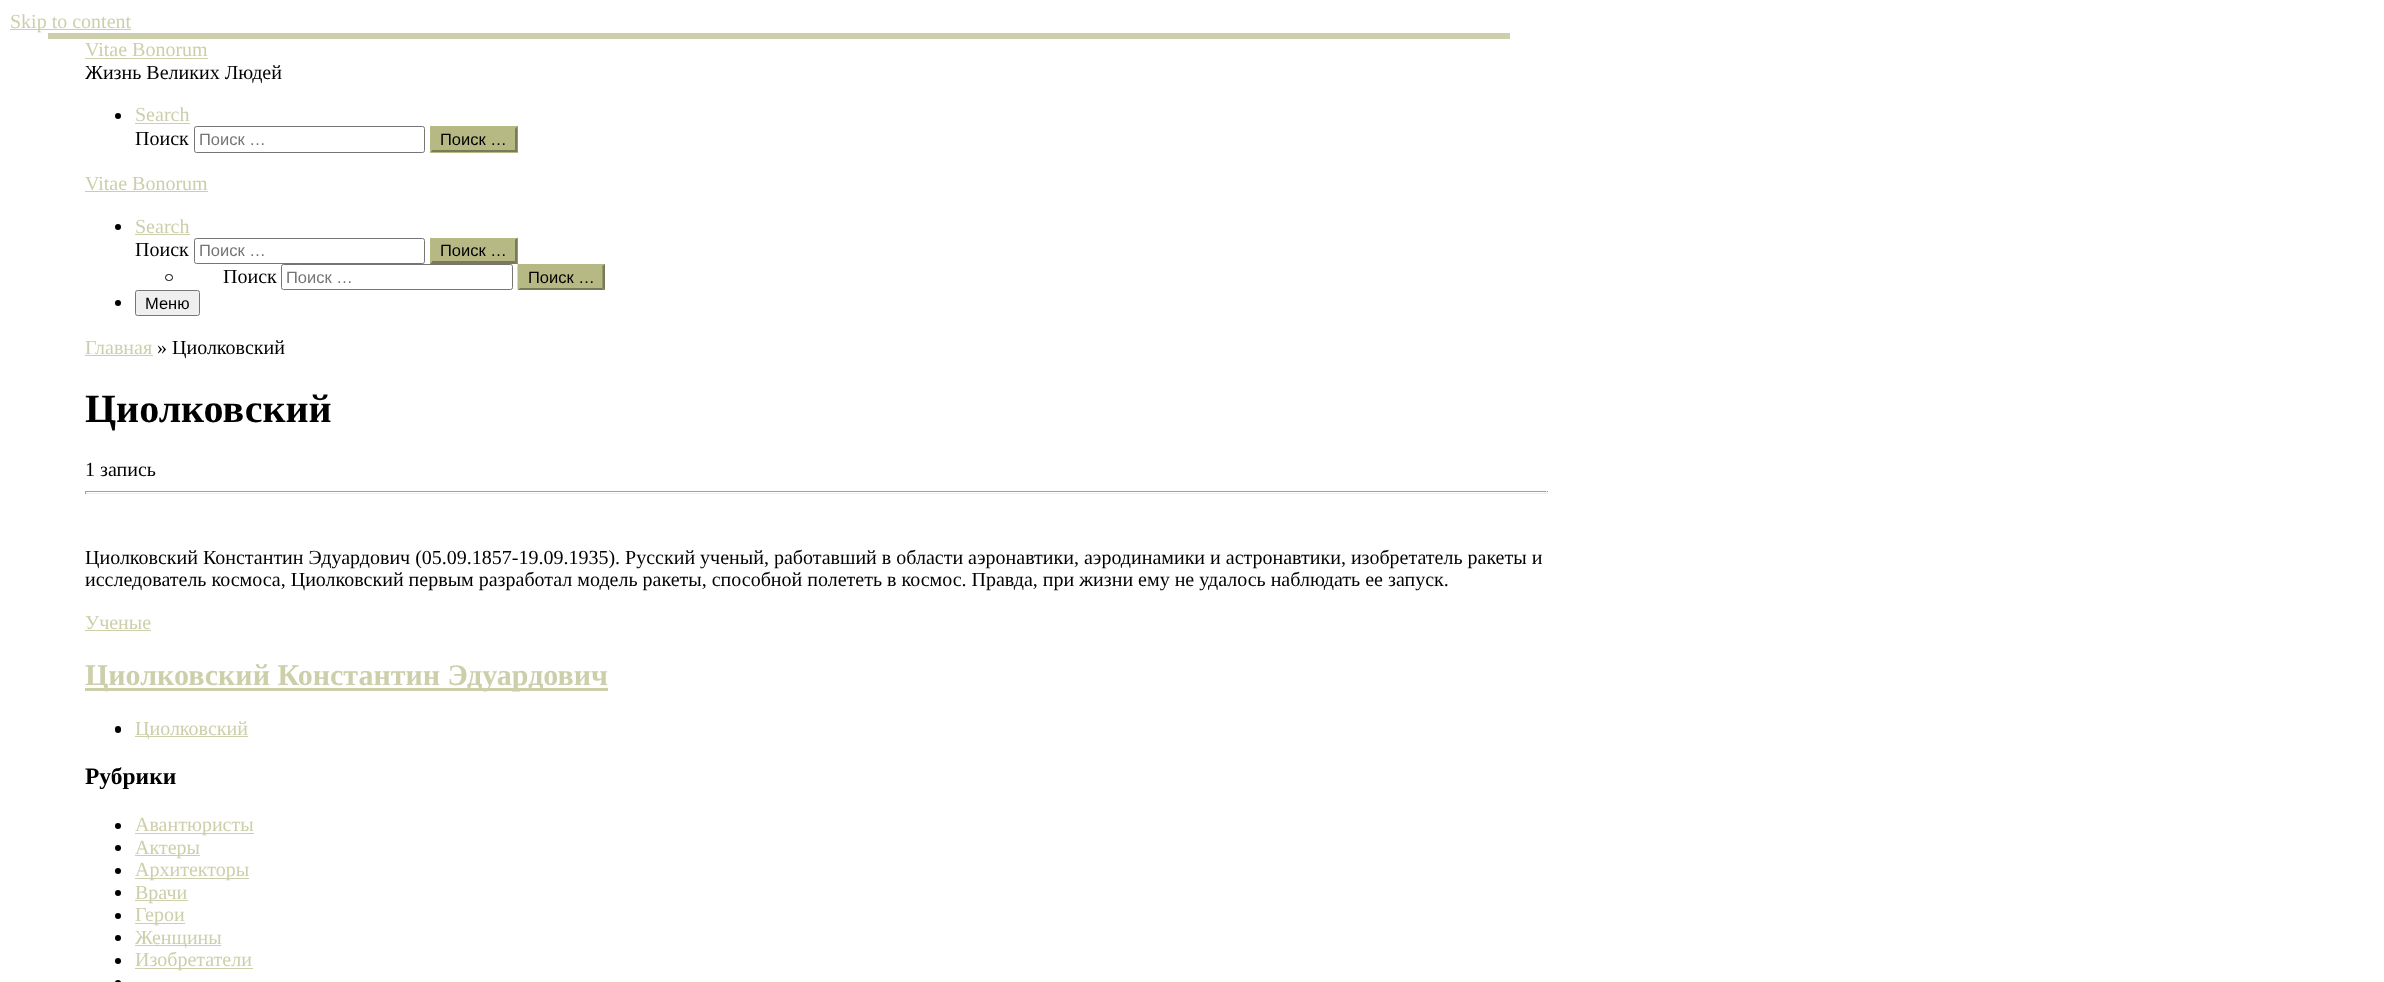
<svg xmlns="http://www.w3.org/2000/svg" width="2384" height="982">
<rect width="100%" height="100%" fill="#fff"/>
<rect x="10" y="29" width="121" height="1" fill="#cdcfaa"/>
<text x="10" y="28" style="font-family:Liberation Serif;font-size:20px;fill:#cdcfaa">Skip to content</text>
<rect x="48" y="33" width="1462" height="6" fill="#cdcfaa"/>
<text x="85" y="56" style="font-family:Liberation Serif;font-size:20px;fill:#cdcfaa">Vitae Bonorum</text>
<rect x="85" y="58" width="123" height="1" fill="#cdcfaa"/>
<text x="85" y="79" style="font-family:Liberation Serif;font-size:20px;fill:#000">Жизнь Великих Людей</text>
<circle cx="118" cy="116" r="3" fill="#000"/>
<text x="135" y="121" style="font-family:Liberation Serif;font-size:20px;fill:#cdcfaa">Search</text>
<rect x="135" y="123" width="55" height="1" fill="#cdcfaa"/>
<text x="135" y="145" style="font-family:Liberation Serif;font-size:20px;fill:#000">Поиск</text>
<rect x="194.5" y="126.5" width="230" height="26" rx="2" fill="none" stroke="#767676"/>
<text x="199" y="145" style="font-family:Liberation Sans;font-size:16.5px;fill:#757575">Поиск …</text>
<rect x="430" y="126" width="88" height="27" fill="#b6b983"/>
<path d="M517.5 126v26.5l-2.5-2.5v-21z" fill="#797b57"/>
<path d="M518 152h-88l2-2h83z" fill="#797b57"/>
<path d="M430 152.5v-26.5l2.5 3v21z" fill="#b6b983"/>
<text x="440" y="145" style="font-family:Liberation Sans;font-size:16.5px;fill:#000">Поиск …</text>
<text x="85" y="190" style="font-family:Liberation Serif;font-size:20px;fill:#cdcfaa">Vitae Bonorum</text>
<rect x="85" y="191" width="123" height="1" fill="#cdcfaa"/>
<circle cx="118" cy="227" r="3" fill="#000"/>
<text x="135" y="233" style="font-family:Liberation Serif;font-size:20px;fill:#cdcfaa">Search</text>
<rect x="135" y="234" width="55" height="1" fill="#cdcfaa"/>
<text x="135" y="256" style="font-family:Liberation Serif;font-size:20px;fill:#000">Поиск</text>
<rect x="194.5" y="238.5" width="230" height="25" rx="2" fill="none" stroke="#767676"/>
<text x="199" y="256" style="font-family:Liberation Sans;font-size:16.5px;fill:#757575">Поиск …</text>
<rect x="430" y="238" width="88" height="26" fill="#b6b983"/>
<path d="M517.5 237.5v26.5l-2.5-3v-21z" fill="#797b57"/>
<path d="M518 264h-88l2-3h83z" fill="#797b57"/>
<path d="M430 264v-26.5l2.5 2.5v21z" fill="#b6b983"/>
<text x="440" y="256" style="font-family:Liberation Sans;font-size:16.5px;fill:#000">Поиск …</text>
<rect x="165.5" y="274.5" width="7" height="6" rx="3" fill="none" stroke="#000"/>
<text x="223" y="283" style="font-family:Liberation Serif;font-size:20px;fill:#000">Поиск</text>
<rect x="281.5" y="264.5" width="231" height="25" rx="2" fill="none" stroke="#767676"/>
<text x="286" y="283" style="font-family:Liberation Sans;font-size:16.5px;fill:#757575">Поиск …</text>
<rect x="518" y="264" width="87" height="26" fill="#b6b983"/>
<path d="M605 264v26l-2.5-2.5v-21.5z" fill="#797b57"/>
<path d="M605 290h-87l2-2h82z" fill="#797b57"/>
<path d="M517.5 290v-26l2.5 2v21.5z" fill="#b6b983"/>
<text x="528" y="283" style="font-family:Liberation Sans;font-size:16.5px;fill:#000">Поиск …</text>
<circle cx="118" cy="303" r="3" fill="#000"/>
<rect x="135.5" y="290.5" width="64" height="25" rx="2" fill="#efefef" stroke="#767676"/>
<text x="145" y="309" style="font-family:Liberation Sans;font-size:16.5px;fill:#000">Меню</text>
<text x="85" y="354" style="font-family:Liberation Serif;font-size:20px;fill:#cdcfaa">Главная</text>
<rect x="85" y="355" width="68" height="1" fill="#cdcfaa"/>
<text x="157" y="354" style="font-family:Liberation Serif;font-size:20px;fill:#000">» Циолковский</text>
<text x="85" y="422" style="font-family:Liberation Serif;font-size:40px;font-weight:bold;fill:#000">Циолковский</text>
<text x="85" y="476" style="font-family:Liberation Serif;font-size:20px;fill:#000">1 запись</text>
<rect x="85" y="491" width="1463" height="1" fill="#9f9f9f"/>
<rect x="1546" y="491" width="1" height="3" fill="#eee"/>
<rect x="85" y="493" width="1463" height="1" fill="#eee"/>
<rect x="85" y="491" width="1" height="3" fill="#9f9f9f"/>
<text x="85" y="564" style="font-family:Liberation Serif;font-size:20px;fill:#000">Циолковский Константин Эдуардович (05.09.1857-19.09.1935). Русский ученый, работавший в области аэронавтики, аэродинамики и астронавтики, изобретатель ракеты и</text>
<text x="85" y="586" style="font-family:Liberation Serif;font-size:20px;fill:#000">исследователь космоса, Циолковский первым разработал модель ракеты, способной полететь в космос. Правда, при жизни ему не удалось наблюдать ее запуск.</text>
<text x="85" y="629" style="font-family:Liberation Serif;font-size:20px;fill:#cdcfaa">Ученые</text>
<rect x="85" y="630" width="66" height="1" fill="#cdcfaa"/>
<rect x="85" y="688" width="523" height="3" fill="#cdcfaa"/>
<text x="85" y="685" style="font-family:Liberation Serif;font-size:30px;font-weight:bold;fill:#cdcfaa">Циолковский Константин Эдуардович</text>
<rect x="115" y="726" width="6" height="7" rx="3" fill="#000"/>
<rect x="135" y="736" width="113" height="1" fill="#cdcfaa"/>
<text x="135" y="735" style="font-family:Liberation Serif;font-size:20px;fill:#cdcfaa">Циолковский</text>
<text x="85" y="784" style="font-family:Liberation Serif;font-size:23.5px;font-weight:bold;fill:#000">Рубрики</text>
<circle cx="118" cy="826" r="3" fill="#000"/>
<rect x="135" y="833" width="119" height="1" fill="#cdcfaa"/>
<text x="135" y="831" style="font-family:Liberation Serif;font-size:20px;fill:#cdcfaa">Авантюристы</text>
<circle cx="118" cy="848" r="3" fill="#000"/>
<rect x="135" y="855" width="65" height="1" fill="#cdcfaa"/>
<text x="135" y="854" style="font-family:Liberation Serif;font-size:20px;fill:#cdcfaa">Актеры</text>
<circle cx="118" cy="871" r="3" fill="#000"/>
<rect x="135" y="878" width="114" height="1" fill="#cdcfaa"/>
<text x="135" y="876" style="font-family:Liberation Serif;font-size:20px;fill:#cdcfaa">Архитекторы</text>
<circle cx="118" cy="893" r="3" fill="#000"/>
<rect x="135" y="900" width="53" height="1" fill="#cdcfaa"/>
<text x="135" y="899" style="font-family:Liberation Serif;font-size:20px;fill:#cdcfaa">Врачи</text>
<circle cx="118" cy="916" r="3" fill="#000"/>
<rect x="135" y="923" width="50" height="1" fill="#cdcfaa"/>
<text x="135" y="921" style="font-family:Liberation Serif;font-size:20px;fill:#cdcfaa">Герои</text>
<circle cx="118" cy="938" r="3" fill="#000"/>
<rect x="135" y="945" width="86" height="1" fill="#cdcfaa"/>
<text x="135" y="944" style="font-family:Liberation Serif;font-size:20px;fill:#cdcfaa">Женщины</text>
<circle cx="118" cy="961" r="3" fill="#000"/>
<rect x="135" y="968" width="118" height="1" fill="#cdcfaa"/>
<text x="135" y="966" style="font-family:Liberation Serif;font-size:20px;fill:#cdcfaa">Изобретатели</text>
<rect x="115" y="980" width="6" height="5" rx="3" fill="#000"/>
</svg>
